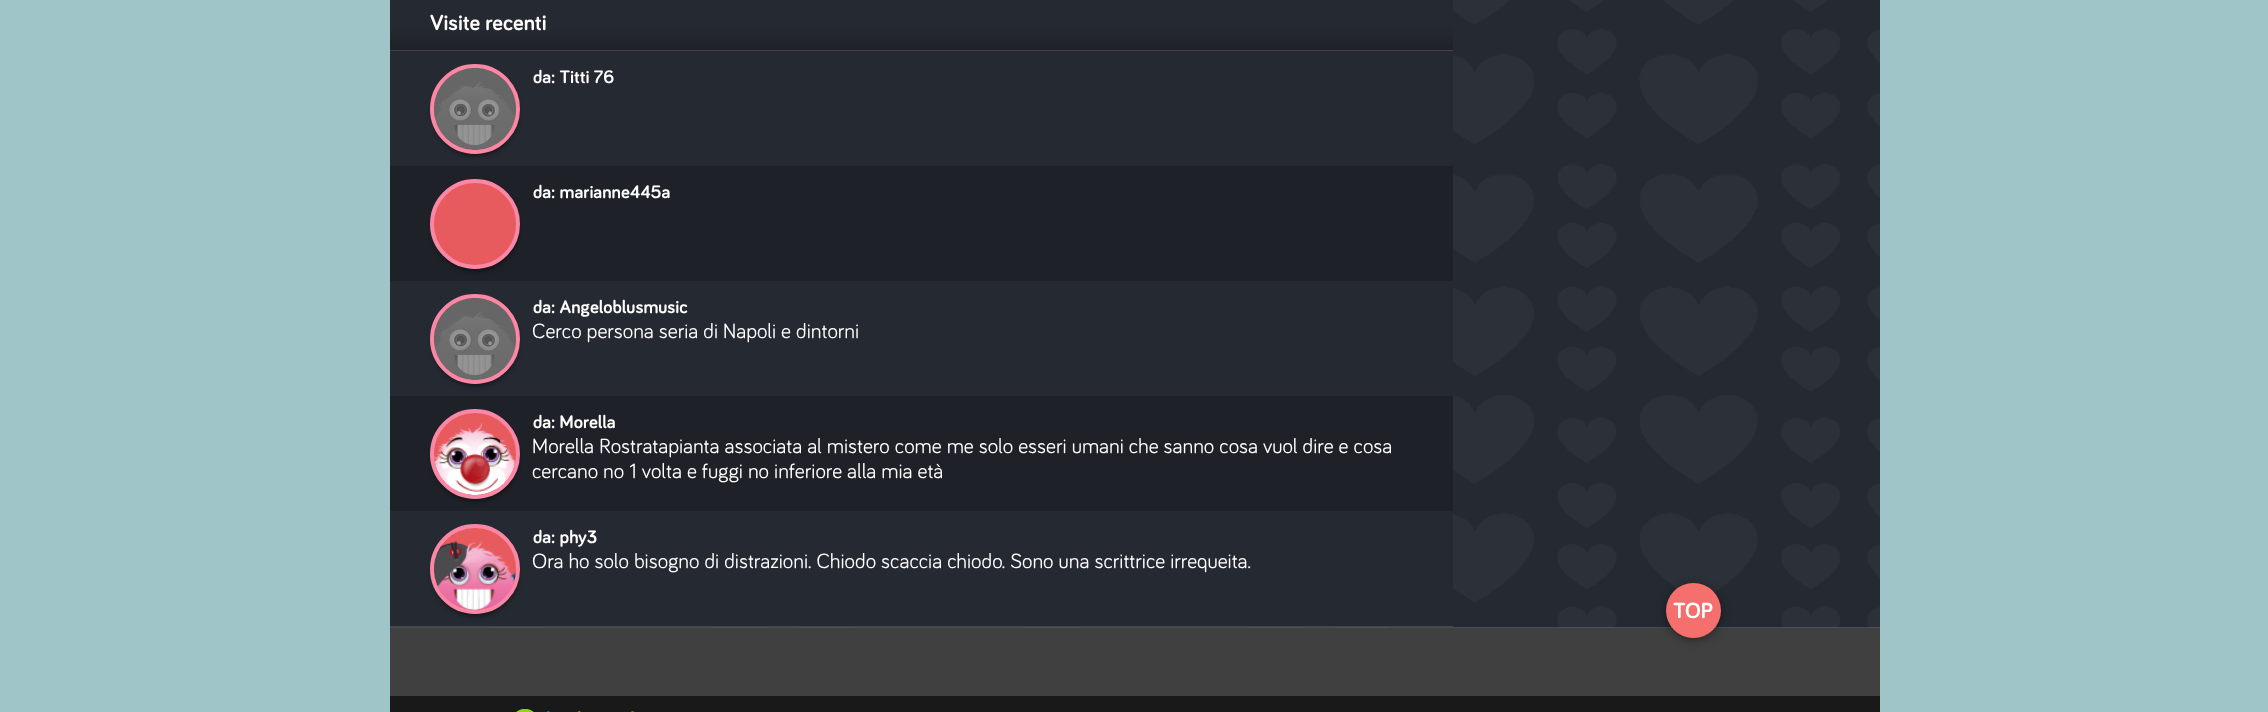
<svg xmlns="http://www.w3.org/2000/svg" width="2268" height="712">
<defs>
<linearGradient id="g1" gradientUnits="userSpaceOnUse" x1="921" y1="0" x2="921" y2="50"><stop offset="0.53" stop-color="#252931"/><stop offset="1" stop-color="#1e2127"/></linearGradient>
</defs>
<rect width="100%" height="100%" fill="#9fc5c8"/>
<image x="390" y="0" width="1490" height="628" href="media/1.png"/>
<rect x="390" width="1063" height="50" fill="url(#g1)"/>
<rect x="390" y="50" width="1063" height="1" fill="#454545"/>
<text x="430" y="30" style="font-family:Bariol;font-size:22.5px;font-weight:bold;fill:#fff">Visite recenti</text>
<rect x="390" y="626" width="1063" height="1" fill="#454545"/>
<rect x="390" y="51" width="1063" height="115" fill="#252931"/>
<rect x="433" y="71" width="85" height="85" rx="42.5" fill="#00000080" filter="blur(2.5px)"/>
<circle cx="475" cy="109" r="43" fill="#e75b5f" stroke="#fa87a6" stroke-width="4"/>
<image x="434" y="68" width="82" height="82" href="media/2.png"/>
<text x="533" y="83" style="font-family:Bariol;font-size:18.75px;font-weight:bold;fill:#fff">da: Titti 76</text>
<rect x="390" y="166" width="1063" height="115" fill="#1e2127"/>
<rect x="433" y="186" width="85" height="85" rx="42.5" fill="#00000080" filter="blur(2.5px)"/>
<circle cx="475" cy="224" r="43" fill="#e75b5f" stroke="#fa87a6" stroke-width="4"/>
<text x="533" y="198" style="font-family:Bariol;font-size:18.75px;font-weight:bold;fill:#fff">da: marianne445a</text>
<rect x="390" y="286" width="1063" height="110" fill="#252931"/>
<rect x="433" y="301" width="85" height="85" rx="42.5" fill="#00000080" filter="blur(2.5px)"/>
<circle cx="475" cy="339" r="43" fill="#e75b5f" stroke="#fa87a6" stroke-width="4"/>
<image x="434" y="298" width="82" height="82" href="media/2.png"/>
<text x="533" y="313" style="font-family:Bariol;font-size:18.75px;font-weight:bold;fill:#fff">da: Angeloblusmusic</text>
<text x="532" y="338" style="font-family:Bariol;font-size:21.25px;fill:#fff">Cerco persona seria di Napoli e dintorni</text>
<rect x="390" y="396" width="1063" height="115" fill="#1e2127"/>
<rect x="433" y="416" width="85" height="85" rx="42.5" fill="#00000080" filter="blur(2.5px)"/>
<circle cx="475" cy="454" r="43" fill="#e75b5f" stroke="#fa87a6" stroke-width="4"/>
<image x="434" y="423" width="81" height="72" href="media/3.png"/>
<text x="533" y="428" style="font-family:Bariol;font-size:18.75px;font-weight:bold;fill:#fff">da: Morella</text>
<text x="532" y="453" style="font-family:Bariol;font-size:21.25px;fill:#fff">Morella Rostratapianta associata al mistero come me solo esseri umani che sanno cosa vuol dire e cosa</text>
<text x="532" y="478" style="font-family:Bariol;font-size:21.25px;fill:#fff">cercano no 1 volta e fuggi no inferiore alla mia età</text>
<rect x="390" y="511" width="1063" height="115" fill="#252931"/>
<rect x="433" y="531" width="85" height="85" rx="42.5" fill="#00000080" filter="blur(2.5px)"/>
<circle cx="475" cy="569" r="43" fill="#e75b5f" stroke="#fa87a6" stroke-width="4"/>
<image x="434" y="540" width="82" height="70" href="media/4.png"/>
<text x="533" y="543" style="font-family:Bariol;font-size:18.75px;font-weight:bold;fill:#fff">da: phy3</text>
<text x="532" y="568" style="font-family:Bariol;font-size:21.25px;fill:#fff">Ora ho solo bisogno di distrazioni. Chiodo scaccia chiodo. Sono una scrittrice irrequeita.</text>
<rect x="390" y="628" width="1490" height="68" fill="#404040"/>
<rect x="1666" y="585" width="55" height="55" rx="27.5" fill="#00000066" filter="blur(5px)"/>
<circle cx="1693.5" cy="610.5" r="27.5" fill="#f56f6c"/>
<text x="1673" y="618" style="font-family:Bariol;font-size:22.5px;font-weight:bold;fill:#fff">TOP</text>
<rect x="390" y="696" width="1490" height="16" fill="#191919"/>
<image x="516" y="709" width="118" height="3" href="media/5.png"/>
</svg>
